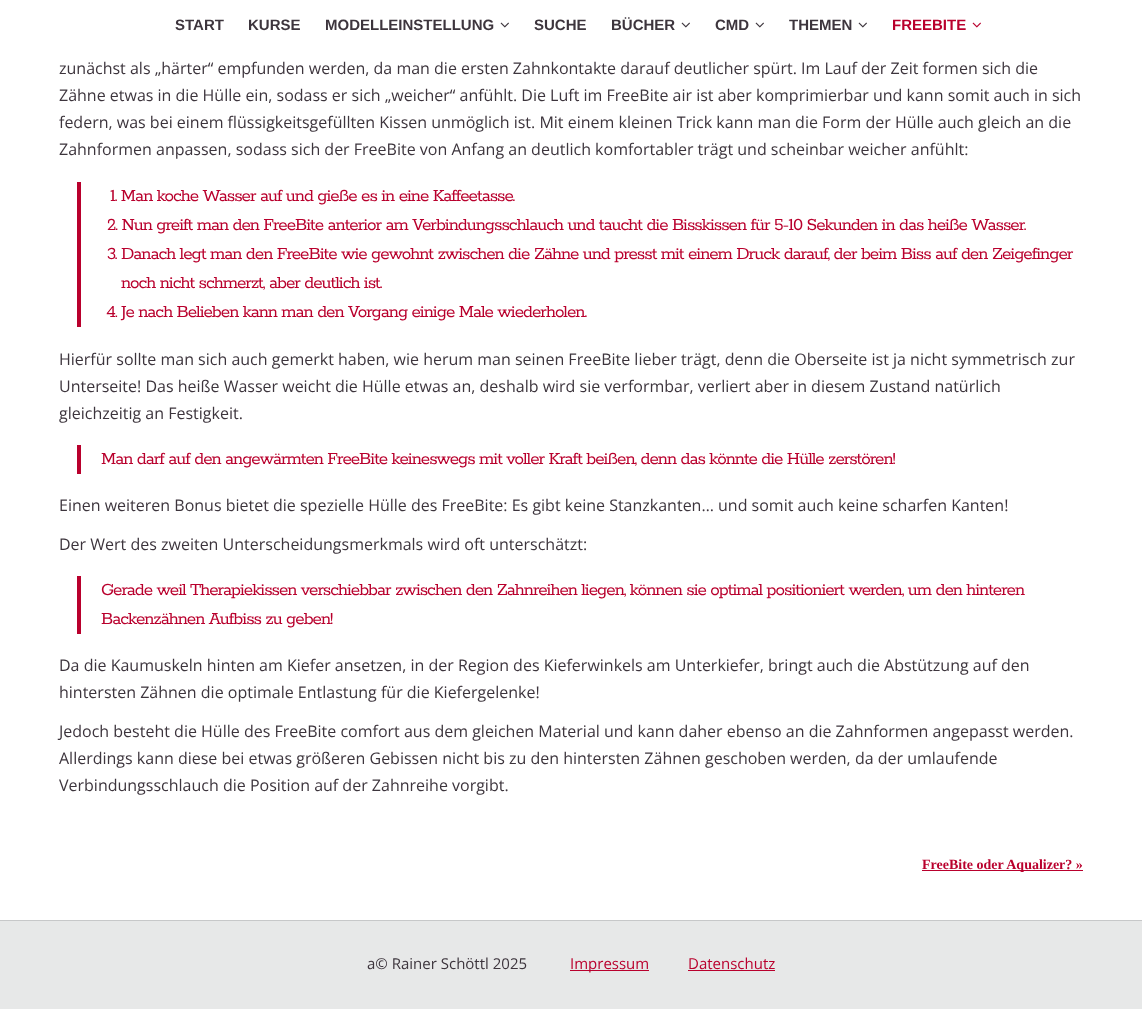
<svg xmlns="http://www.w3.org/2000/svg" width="1142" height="1009">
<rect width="100%" height="100%" fill="#e7e8e8"/>
<rect width="1142" height="920" fill="#fff"/>
<text x="175" y="30" style="font-family:Liberation Sans;font-size:15px;font-weight:bold;fill:#3d353d">START</text>
<text x="248" y="30" style="font-family:Liberation Sans;font-size:15px;font-weight:bold;fill:#3d353d">KURSE</text>
<text x="325" y="30" style="font-family:Liberation Sans;font-size:15px;font-weight:bold;fill:#3d353d">MODELLEINSTELLUNG</text>
<image x="500" y="22" width="9" height="6" href="media/1.png"/>
<text x="534" y="30" style="font-family:Liberation Sans;font-size:15px;font-weight:bold;fill:#3d353d">SUCHE</text>
<text x="611" y="30" style="font-family:Liberation Sans;font-size:15px;font-weight:bold;fill:#3d353d">BÜCHER</text>
<image x="681" y="22" width="9" height="6" href="media/1.png"/>
<text x="715" y="30" style="font-family:Liberation Sans;font-size:15px;font-weight:bold;fill:#3d353d">CMD</text>
<image x="755" y="22" width="9" height="6" href="media/1.png"/>
<text x="789" y="30" style="font-family:Liberation Sans;font-size:15px;font-weight:bold;fill:#3d353d">THEMEN</text>
<image x="858" y="22" width="9" height="6" href="media/1.png"/>
<text x="892" y="30" style="font-family:Liberation Sans;font-size:15px;font-weight:bold;fill:#b9002d">FREEBITE</text>
<image x="972" y="22" width="9" height="6" href="media/2.png"/>
<text x="59" y="74" style="font-family:Open Sans;font-size:16px;fill:#3d353d">zunächst als „härter“ empfunden werden, da man die ersten Zahnkontakte darauf deutlicher spürt. Im Lauf der Zeit formen sich die</text>
<text x="59" y="101" style="font-family:Open Sans;font-size:16px;fill:#3d353d">Zähne etwas in die Hülle ein, sodass er sich „weicher“ anfühlt. Die Luft im FreeBite air ist aber komprimierbar und kann somit auch in sich</text>
<text x="59" y="128" style="font-family:Open Sans;font-size:16px;fill:#3d353d">federn, was bei einem flüssigkeitsgefüllten Kissen unmöglich ist. Mit einem kleinen Trick kann man die Form der Hülle auch gleich an die</text>
<text x="59" y="155" style="font-family:Open Sans;font-size:16px;fill:#3d353d">Zahnformen anpassen, sodass sich der FreeBite von Anfang an deutlich komfortabler trägt und scheinbar weicher anfühlt:</text>
<rect x="77" y="182" width="4" height="145" fill="#b9002d"/>
<text x="110" y="201" style="font-family:Rokkitt;font-size:19px;letter-spacing:-1px;fill:#b9002d">1. Man koche Wasser auf und gieße es in eine Kaffeetasse.</text>
<text x="107" y="230" style="font-family:Rokkitt;font-size:19px;letter-spacing:-1px;fill:#b9002d">2. Nun greift man den FreeBite anterior am Verbindungsschlauch und taucht die Bisskissen für 5-10 Sekunden in das heiße Wasser.</text>
<text x="107" y="259" style="font-family:Rokkitt;font-size:19px;letter-spacing:-1px;fill:#b9002d">3. Danach legt man den FreeBite wie gewohnt zwischen die Zähne und presst mit einem Druck darauf, der beim Biss auf den Zeigefinger</text>
<text x="121" y="288" style="font-family:Rokkitt;font-size:19px;letter-spacing:-1px;fill:#b9002d">noch nicht schmerzt, aber deutlich ist.</text>
<text x="106" y="317" style="font-family:Rokkitt;font-size:19px;letter-spacing:-1px;fill:#b9002d">4. Je nach Belieben kann man den Vorgang einige Male wiederholen.</text>
<text x="59" y="365" style="font-family:Open Sans;font-size:16px;fill:#3d353d">Hierfür sollte man sich auch gemerkt haben, wie herum man seinen FreeBite lieber trägt, denn die Oberseite ist ja nicht symmetrisch zur</text>
<text x="59" y="392" style="font-family:Open Sans;font-size:16px;fill:#3d353d">Unterseite! Das heiße Wasser weicht die Hülle etwas an, deshalb wird sie verformbar, verliert aber in diesem Zustand natürlich</text>
<text x="59" y="419" style="font-family:Open Sans;font-size:16px;fill:#3d353d">gleichzeitig an Festigkeit.</text>
<rect x="77" y="445" width="4" height="29" fill="#b9002d"/>
<text x="101" y="464" style="font-family:Rokkitt;font-size:19px;letter-spacing:-1px;fill:#b9002d">Man darf auf den angewärmten FreeBite keineswegs mit voller Kraft beißen, denn das könnte die Hülle zerstören!</text>
<text x="59" y="511" style="font-family:Open Sans;font-size:16px;fill:#3d353d">Einen weiteren Bonus bietet die spezielle Hülle des FreeBite: Es gibt keine Stanzkanten… und somit auch keine scharfen Kanten!</text>
<text x="59" y="550" style="font-family:Open Sans;font-size:16px;fill:#3d353d">Der Wert des zweiten Unterscheidungsmerkmals wird oft unterschätzt:</text>
<rect x="77" y="576" width="4" height="58" fill="#b9002d"/>
<text x="101" y="595" style="font-family:Rokkitt;font-size:19px;letter-spacing:-1px;fill:#b9002d">Gerade weil Therapiekissen verschiebbar zwischen den Zahnreihen liegen, können sie optimal positioniert werden, um den hinteren</text>
<text x="101" y="624" style="font-family:Rokkitt;font-size:19px;letter-spacing:-1px;fill:#b9002d">Backenzähnen Aufbiss zu geben!</text>
<text x="59" y="671" style="font-family:Open Sans;font-size:16px;fill:#3d353d">Da die Kaumuskeln hinten am Kiefer ansetzen, in der Region des Kieferwinkels am Unterkiefer, bringt auch die Abstützung auf den</text>
<text x="59" y="698" style="font-family:Open Sans;font-size:16px;fill:#3d353d">hintersten Zähnen die optimale Entlastung für die Kiefergelenke!</text>
<text x="59" y="737" style="font-family:Open Sans;font-size:16px;fill:#3d353d">Jedoch besteht die Hülle des FreeBite comfort aus dem gleichen Material und kann daher ebenso an die Zahnformen angepasst werden.</text>
<text x="59" y="764" style="font-family:Open Sans;font-size:16px;fill:#3d353d">Allerdings kann diese bei etwas größeren Gebissen nicht bis zu den hintersten Zähnen geschoben werden, da der umlaufende</text>
<text x="59" y="791" style="font-family:Open Sans;font-size:16px;fill:#3d353d">Verbindungsschlauch die Position auf der Zahnreihe vorgibt.</text>
<rect x="922" y="870" width="161" height="1" fill="#b9002d"/>
<text x="922" y="869" style="font-family:Liberation Serif;font-size:14px;font-weight:bold;fill:#b9002d">FreeBite oder Aqualizer? »</text>
<rect y="920" width="1142" height="1" fill="#c7c8c9"/>
<text x="367" y="969" style="font-family:Open Sans;font-size:15px;fill:#3d353d">a© Rainer Schöttl 2025</text>
<rect x="570" y="970" width="79" height="1" fill="#b9002d"/>
<text x="570" y="969" style="font-family:Open Sans;font-size:15px;fill:#b9002d">Impressum</text>
<text x="688" y="969" style="font-family:Open Sans;font-size:15px;fill:#b9002d">Datenschutz</text>
<rect x="688" y="970" width="87" height="1" fill="#b9002d"/>
</svg>
